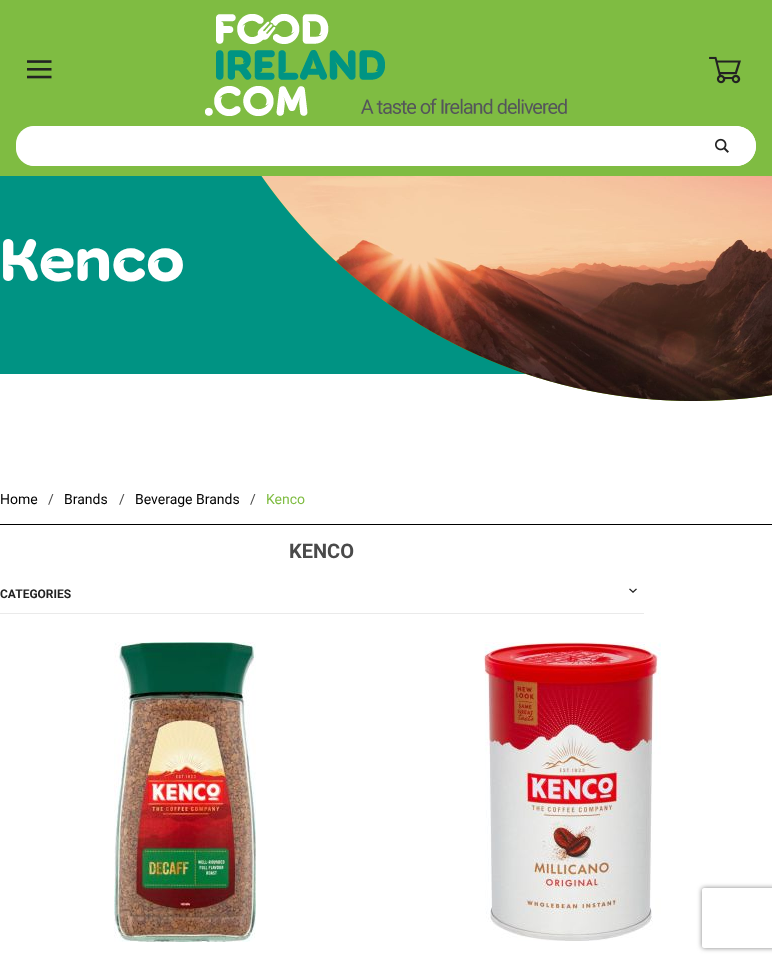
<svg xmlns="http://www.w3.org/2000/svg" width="772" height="962">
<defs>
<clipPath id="clip1"><path d="M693 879h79v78h-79zm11 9h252c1 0 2 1 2 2v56c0 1-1 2-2 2h-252c-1 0-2-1-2-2v-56c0-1 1-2 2-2z" clip-rule="evenodd"/></clipPath>
</defs>
<rect width="100%" height="100%" fill="#fff"/>
<rect width="772" height="176" fill="#7fbc42"/>
<image x="27" y="60" width="25" height="19" href="media/1.png"/>
<image x="205" y="14" width="362" height="102" href="media/2.png"/>
<image x="709" y="56" width="32" height="28" href="media/3.png"/>
<rect x="16" y="126" width="740" height="40" rx="20" fill="#fff"/>
<rect x="16" y="126" width="672" height="40" rx="18" fill="#fff"/>
<path d="M688 126h48c11 0 20 9 20 20c0 11-9 20-20 20h-48z" fill="#fff"/>
<image x="715" y="138" width="14" height="15" href="media/4.png"/>
<image x="0" y="176" width="772" height="225" href="media/5.png"/>
<text x="0" y="281" style="font-family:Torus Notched;font-size:64px;font-weight:bold;fill:#fff">Kenco</text>
<rect y="524" width="772" height="1" fill="#000"/>
<text x="0" y="504" style="font-family:Roboto;font-size:14px;fill:#000">Home</text>
<text x="48" y="504" style="font-family:Roboto;font-size:14px;fill:#4a4a4a">/</text>
<text x="64" y="504" style="font-family:Roboto;font-size:14px;fill:#000">Brands</text>
<text x="119" y="504" style="font-family:Roboto;font-size:14px;fill:#4a4a4a">/</text>
<text x="135" y="504" style="font-family:Roboto;font-size:14px;fill:#000">Beverage Brands</text>
<text x="250" y="504" style="font-family:Roboto;font-size:14px;fill:#4a4a4a">/</text>
<text x="266" y="504" style="font-family:Roboto;font-size:14px;fill:#7fbc42">Kenco</text>
<text x="289" y="558" style="font-family:Roboto;font-size:20px;font-weight:bold;fill:#4a4a4a">KENCO</text>
<rect y="613" width="644" height="1" fill="#eaeaea"/>
<text x="0" y="598" style="font-family:Roboto;font-size:12px;font-weight:bold;fill:#222">CATEGORIES</text>
<text x="629" y="594" style="font-family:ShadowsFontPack;font-size:8px;fill:#222">1</text>
<image x="114" y="642" width="142" height="300" href="media/6.png"/>
<image x="483" y="642" width="178" height="299" href="media/7.png"/>
<g clip-path="url(#clip1)">
<rect x="702" y="888" width="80" height="60" rx="2" fill="#808080" filter="blur(2.5px)"/>
</g>
</svg>
